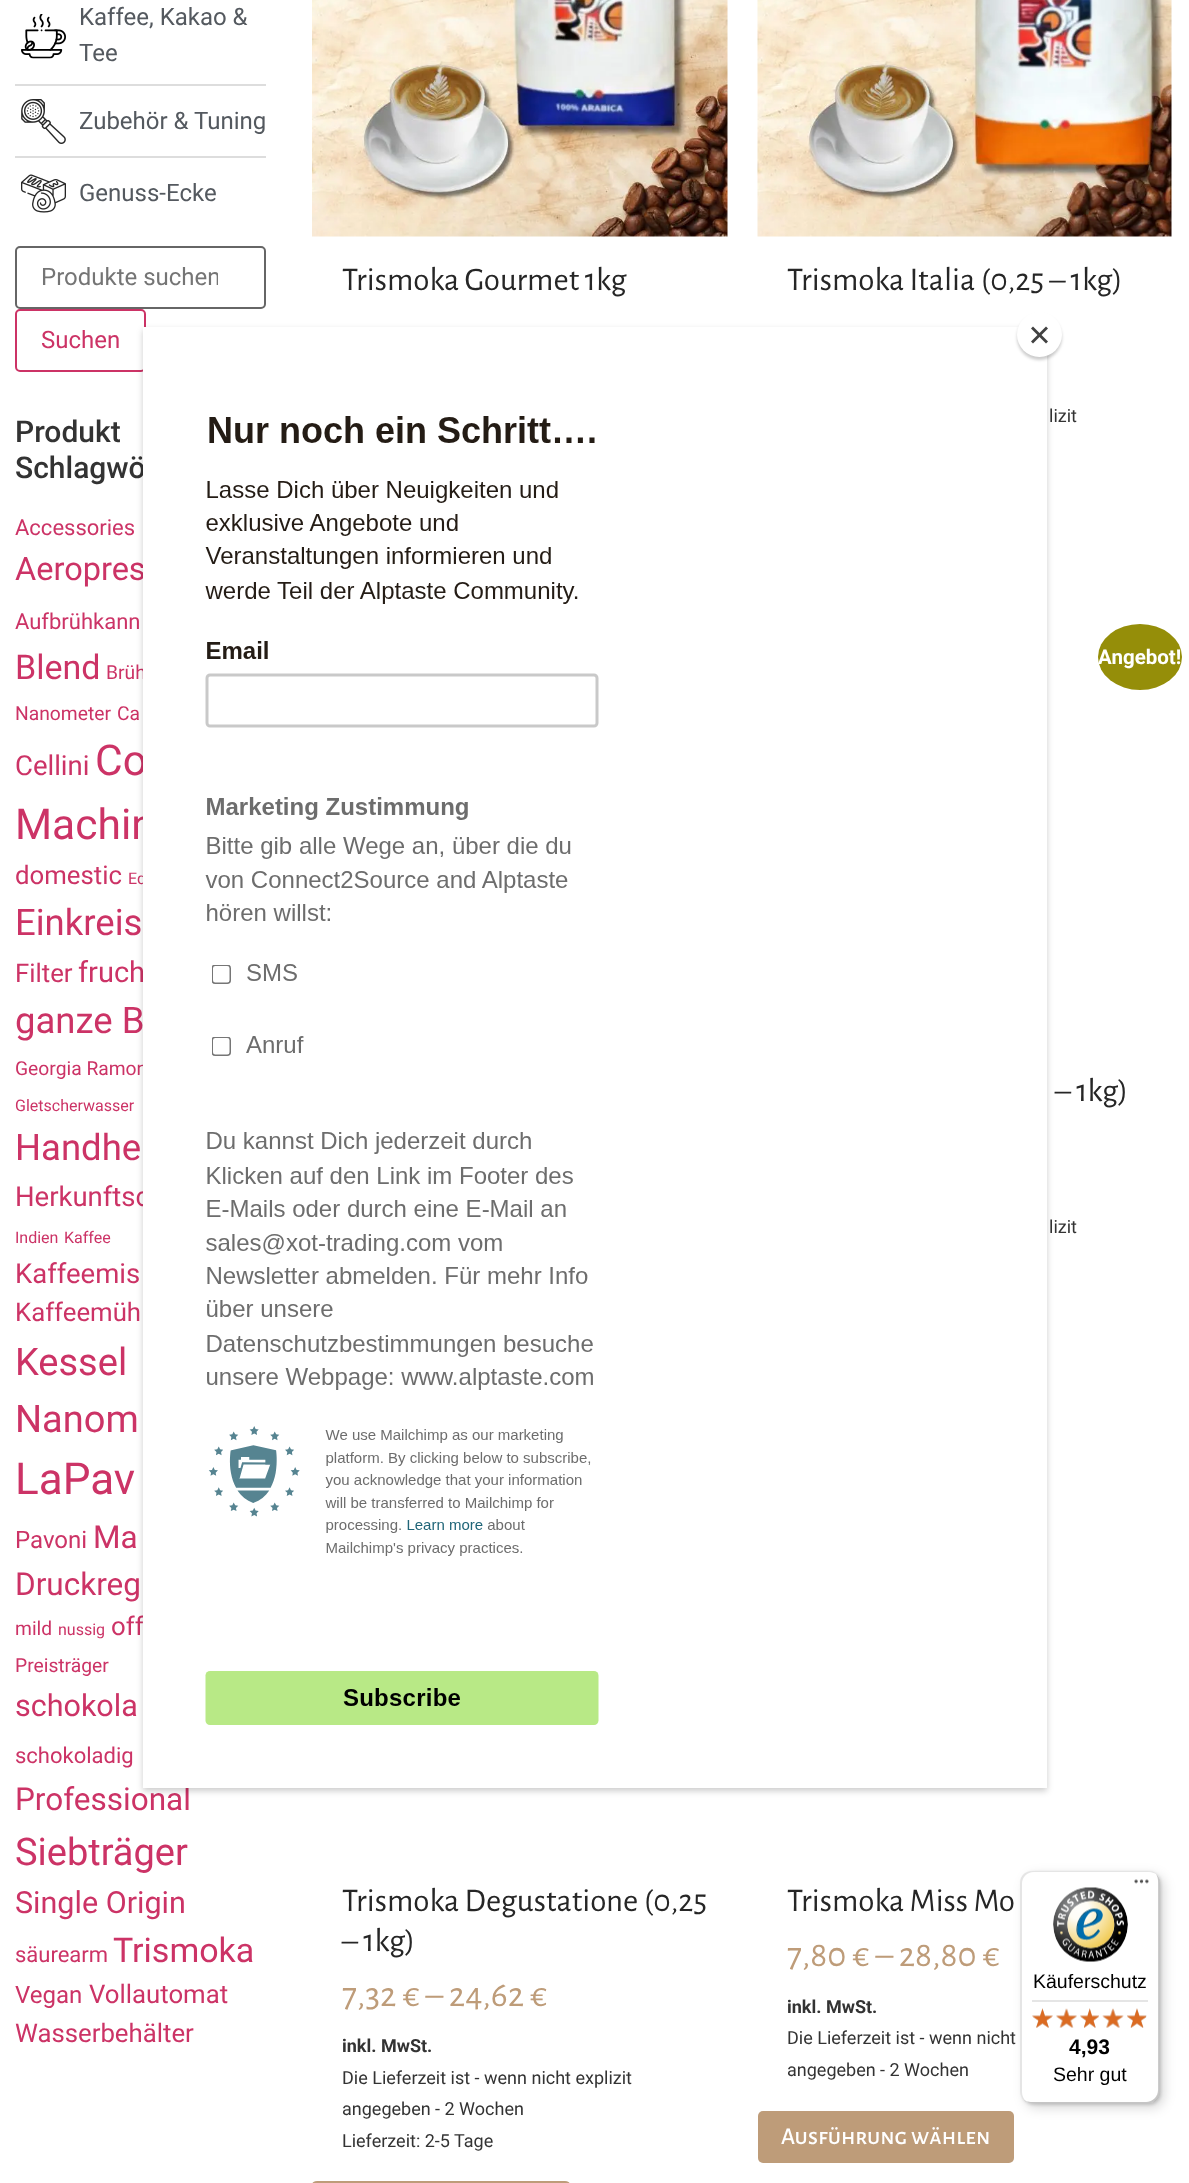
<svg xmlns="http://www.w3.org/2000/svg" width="1189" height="2183">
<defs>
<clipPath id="clip1"><rect x="41" y="263" width="177" height="28"/></clipPath>
</defs>
<rect width="100%" height="100%" fill="#fff"/>
<image x="21" y="14" width="45" height="45" href="media/1.png"/>
<text x="79" y="25" style="font-family:Roboto;font-size:24px;fill:#54595f">Kaffee, Kakao &amp;</text>
<text x="79" y="61" style="font-family:Roboto;font-size:24px;fill:#54595f">Tee</text>
<rect x="15" y="84" width="251" height="2" fill="#ddd"/>
<image x="21" y="99" width="45" height="45" href="media/2.png"/>
<text x="79" y="129" style="font-family:Roboto;font-size:24px;fill:#54595f">Zubehör &amp; Tuning</text>
<rect x="15" y="156" width="251" height="2" fill="#ddd"/>
<image x="21" y="174" width="45" height="39" href="media/3.png"/>
<text x="79" y="201" style="font-family:Roboto;font-size:24px;fill:#54595f">Genuss-Ecke</text>
<rect x="16" y="247" width="249" height="61" rx="4" fill="none" stroke="#666" stroke-width="2"/>
<g clip-path="url(#clip1)">
<text x="41" y="285" style="font-family:Roboto;font-size:24px;fill:#757575">Produkte suchen</text>
</g>
<rect x="16" y="310" width="129" height="61" rx="4" fill="none" stroke="#c36" stroke-width="2"/>
<text x="41" y="348" style="font-family:Roboto;font-size:24px;fill:#c36">Suchen</text>
<text x="15" y="442" style="font-family:Roboto;font-size:30px;font-weight:500;fill:#333">Produkt</text>
<text x="15" y="478" style="font-family:Roboto;font-size:30px;font-weight:500;fill:#333">Schlagwö</text>
<text x="15" y="535" style="font-family:Roboto;font-size:22px;fill:#c36">Accessories</text>
<text x="15" y="580" style="font-family:Roboto;font-size:32.5px;fill:#c36">Aeropres</text>
<text x="15" y="629" style="font-family:Roboto;font-size:22px;fill:#c36">Aufbrühkann</text>
<text x="15" y="679" style="font-family:Roboto;font-size:34px;fill:#c36">Blend</text>
<text x="106" y="679" style="font-family:Roboto;font-size:19.25px;fill:#c36">Brüh</text>
<text x="15" y="720" style="font-family:Roboto;font-size:19.25px;fill:#c36">Nanometer</text>
<text x="117" y="720" style="font-family:Roboto;font-size:19.25px;fill:#c36">Ca</text>
<text x="15" y="775" style="font-family:Roboto;font-size:27.5px;fill:#c36">Cellini</text>
<text x="95" y="775" style="font-family:Roboto;font-size:42.5px;fill:#c36">Co</text>
<text x="15" y="839" style="font-family:Roboto;font-size:42.5px;fill:#c36">Machin</text>
<text x="15" y="884" style="font-family:Roboto;font-size:25.75px;fill:#c36">domestic</text>
<text x="128" y="884" style="font-family:Roboto;font-size:16px;fill:#c36">Ed</text>
<text x="15" y="935" style="font-family:Roboto;font-size:36.5px;fill:#c36">Einkreis</text>
<text x="15" y="982" style="font-family:Roboto;font-size:25.75px;fill:#c36">Filter</text>
<text x="78" y="982" style="font-family:Roboto;font-size:29px;fill:#c36">fruch</text>
<text x="15" y="1033" style="font-family:Roboto;font-size:36.5px;fill:#c36">ganze B</text>
<text x="15" y="1075" style="font-family:Roboto;font-size:19.25px;fill:#c36">Georgia Ramon</text>
<text x="15" y="1111" style="font-family:Roboto;font-size:16px;fill:#c36">Gletscherwasser</text>
<text x="15" y="1160" style="font-family:Roboto;font-size:36.5px;fill:#c36">Handhe</text>
<text x="15" y="1206" style="font-family:Roboto;font-size:27.5px;fill:#c36">Herkunftsc</text>
<text x="15" y="1243" style="font-family:Roboto;font-size:16px;fill:#c36">Indien</text>
<text x="64" y="1243" style="font-family:Roboto;font-size:16px;fill:#c36">Kaffee</text>
<text x="15" y="1283" style="font-family:Roboto;font-size:27.5px;fill:#c36">Kaffeemis</text>
<text x="15" y="1321" style="font-family:Roboto;font-size:25.75px;fill:#c36">Kaffeemüh</text>
<text x="15" y="1375" style="font-family:Roboto;font-size:38px;fill:#c36">Kessel</text>
<text x="15" y="1432" style="font-family:Roboto;font-size:38px;fill:#c36">Nanom</text>
<text x="15" y="1494" style="font-family:Roboto;font-size:44px;fill:#c36">LaPav</text>
<text x="15" y="1548" style="font-family:Roboto;font-size:24px;fill:#c36">Pavoni</text>
<text x="93" y="1548" style="font-family:Roboto;font-size:31.5px;fill:#c36">Ma</text>
<text x="15" y="1595" style="font-family:Roboto;font-size:31.5px;fill:#c36">Druckreg</text>
<text x="15" y="1635" style="font-family:Roboto;font-size:19.25px;fill:#c36">mild</text>
<text x="58" y="1635" style="font-family:Roboto;font-size:16px;fill:#c36">nussig</text>
<text x="111" y="1635" style="font-family:Roboto;font-size:25.75px;fill:#c36">off</text>
<text x="15" y="1672" style="font-family:Roboto;font-size:19.25px;fill:#c36">Preisträger</text>
<text x="15" y="1716" style="font-family:Roboto;font-size:30.5px;fill:#c36">schokola</text>
<text x="15" y="1763" style="font-family:Roboto;font-size:22px;fill:#c36">schokoladig</text>
<text x="15" y="1810" style="font-family:Roboto;font-size:31.5px;fill:#c36">Professional</text>
<text x="15" y="1865" style="font-family:Roboto;font-size:38px;fill:#c36">Siebträger</text>
<text x="15" y="1913" style="font-family:Roboto;font-size:30.5px;fill:#c36">Single Origin</text>
<text x="15" y="1962" style="font-family:Roboto;font-size:22px;fill:#c36">säurearm</text>
<text x="113" y="1962" style="font-family:Roboto;font-size:34px;fill:#c36">Trismoka</text>
<text x="15" y="2003" style="font-family:Roboto;font-size:24px;fill:#c36">Vegan</text>
<text x="89" y="2003" style="font-family:Roboto;font-size:25.75px;fill:#c36">Vollautomat</text>
<text x="15" y="2042" style="font-family:Roboto;font-size:25.75px;fill:#c36">Wasserbehälter</text>
<image x="312" y="0" width="416" height="237" href="media/4.png"/>
<text x="342" y="290" style="font-family:Alegreya Sans;font-size:33px;fill:#262626">Trismoka Gourmet 1kg</text>
<image x="757" y="0" width="415" height="237" href="media/5.png"/>
<text x="787" y="290" style="font-family:Alegreya Sans;font-size:33px;fill:#262626">Trismoka Italia (0,25 – 1kg)</text>
<text x="1049" y="422" style="font-family:Roboto;font-size:18px;fill:#333">lizit</text>
<ellipse cx="1140" cy="657" rx="42" ry="33" fill="#958e09"/>
<text x="1098" y="664" style="font-family:Roboto;font-size:20.5px;font-weight:bold;fill:#fff">Angebot!</text>
<text x="1055" y="1101" style="font-family:Alegreya Sans;font-size:33px;fill:#262626">– 1kg)</text>
<text x="1049" y="1233" style="font-family:Roboto;font-size:18px;fill:#333">lizit</text>
<text x="342" y="1911" style="font-family:Alegreya Sans;font-size:33px;fill:#262626">Trismoka Degustatione (0,25</text>
<text x="342" y="1951" style="font-family:Alegreya Sans;font-size:33px;fill:#262626">– 1kg)</text>
<text x="342" y="2006" style="font-family:Alegreya Sans SC;font-size:36px;fill:#be9c79">7,32 € – 24,62 €</text>
<text x="342" y="2052" style="font-family:Roboto;font-size:18px;font-weight:bold;fill:#333">inkl. MwSt.</text>
<text x="342" y="2084" style="font-family:Roboto;font-size:18px;fill:#333">Die Lieferzeit ist - wenn nicht explizit</text>
<text x="342" y="2115" style="font-family:Roboto;font-size:18px;fill:#333">angegeben - 2 Wochen</text>
<text x="342" y="2147" style="font-family:Roboto;font-size:18px;fill:#333">Lieferzeit: 2-5 Tage</text>
<rect x="312" y="2181" width="258" height="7" rx="5" fill="#be9c79"/>
<text x="787" y="1911" style="font-family:Alegreya Sans;font-size:33px;fill:#262626">Trismoka Miss Mo</text>
<text x="787" y="1966" style="font-family:Alegreya Sans SC;font-size:36px;fill:#be9c79">7,80 € – 28,80 €</text>
<text x="787" y="2013" style="font-family:Roboto;font-size:18px;font-weight:bold;fill:#333">inkl. MwSt.</text>
<text x="787" y="2044" style="font-family:Roboto;font-size:18px;fill:#333">Die Lieferzeit ist - wenn nicht</text>
<text x="787" y="2076" style="font-family:Roboto;font-size:18px;fill:#333">angegeben - 2 Wochen</text>
<rect x="758" y="2111" width="256" height="52" rx="5" fill="#be9c79"/>
<text x="781" y="2144" style="font-family:Alegreya Sans SC;font-size:24px;font-weight:500;fill:#fff">Ausführung wählen</text>
<rect x="143" y="330" width="904" height="1461" fill="#00000033" filter="blur(3px)"/>
<image x="143" y="327" width="904" height="1461" href="media/6.png"/>
<rect x="1017" y="315" width="45" height="45" rx="22.5" fill="#00000033" filter="blur(1.5px)"/>
<circle cx="1039.5" cy="334.5" r="22.5" fill="#fff"/>
<path d="M1046 326.5l2 2l-15 15l-2-2z" fill="#414141"/>
<path d="M1031 328.5l2-2l15 15l-2 2z" fill="#414141"/>
<rect x="1025" y="1875" width="139" height="233" rx="12" fill="#00000026" filter="blur(6px)"/>
<rect x="1022" y="1872" width="139" height="233" rx="12" fill="#00000026" filter="blur(1.5px)"/>
<rect x="1020" y="1871" width="140" height="232" rx="12" fill="#fff"/>
<path d="M1034 1872h115c3 0 5 1 7 2c-2-2-5-3-8-3h-116c-7 0-12 5-12 12v208c0 5 3 9 7 11c-3-2-5-6-5-10v-208c0-7 5-12 12-12z" fill="#0000001a"/>
<path d="M1025 2100c2 2 4 3 7 3h116c7 0 12-5 12-12v-208c0-4-2-7-4-9c1 2 2 4 2 7v209c0 6-5 12-12 12h-116c-2 0-4-1-5-2z" fill="#00000033"/>
<path d="M1024 2100c2 2 5 3 8 3h116c7 0 12-5 12-12v-208c0-4-2-7-4-9c2 2 3 5 3 8v208c0 7-6 12-12 12h-116c-3 0-5-1-7-2z" fill="#32323233"/>
<path d="M1023 2099c2 2 5 4 9 4h116c7 0 12-5 12-12v-208c0-4-2-7-4-9c2 2 3 5 3 8v208c0 7-6 12-12 12h-116c-3 0-6-1-8-3z" fill="#ffffff4d"/>
<image x="1134" y="1879" width="15" height="5" href="media/7.png"/>
<image x="1053" y="1887" width="75" height="75" href="media/8.png"/>
<text x="1033" y="1988" style="font-family:Liberation Sans;font-size:19.5px;fill:#000">Käuferschutz</text>
<rect x="1032" y="2000" width="116" height="2" fill="#e5e5e5"/>
<image x="1032" y="2008" width="21" height="20" href="media/9.png"/>
<image x="1056" y="2009" width="21" height="19" href="media/10.png"/>
<image x="1080" y="2008" width="19" height="20" href="media/11.png"/>
<image x="1103" y="2009" width="20" height="19" href="media/12.png"/>
<image x="1127" y="2008" width="20" height="20" href="media/13.png"/>
<image x="1032" y="2008" width="21" height="20" href="media/14.png"/>
<image x="1056" y="2008" width="21" height="20" href="media/15.png"/>
<image x="1080" y="2008" width="19" height="20" href="media/16.png"/>
<image x="1102" y="2008" width="22" height="20" href="media/17.png"/>
<image x="1127" y="2008" width="19" height="20" href="media/18.png"/>
<text x="1069" y="2054" style="font-family:Liberation Sans;font-size:21px;font-weight:bold;fill:#000">4,93</text>
<text x="1053" y="2081" style="font-family:Liberation Sans;font-size:19.5px;fill:#000">Sehr gut</text>
</svg>
